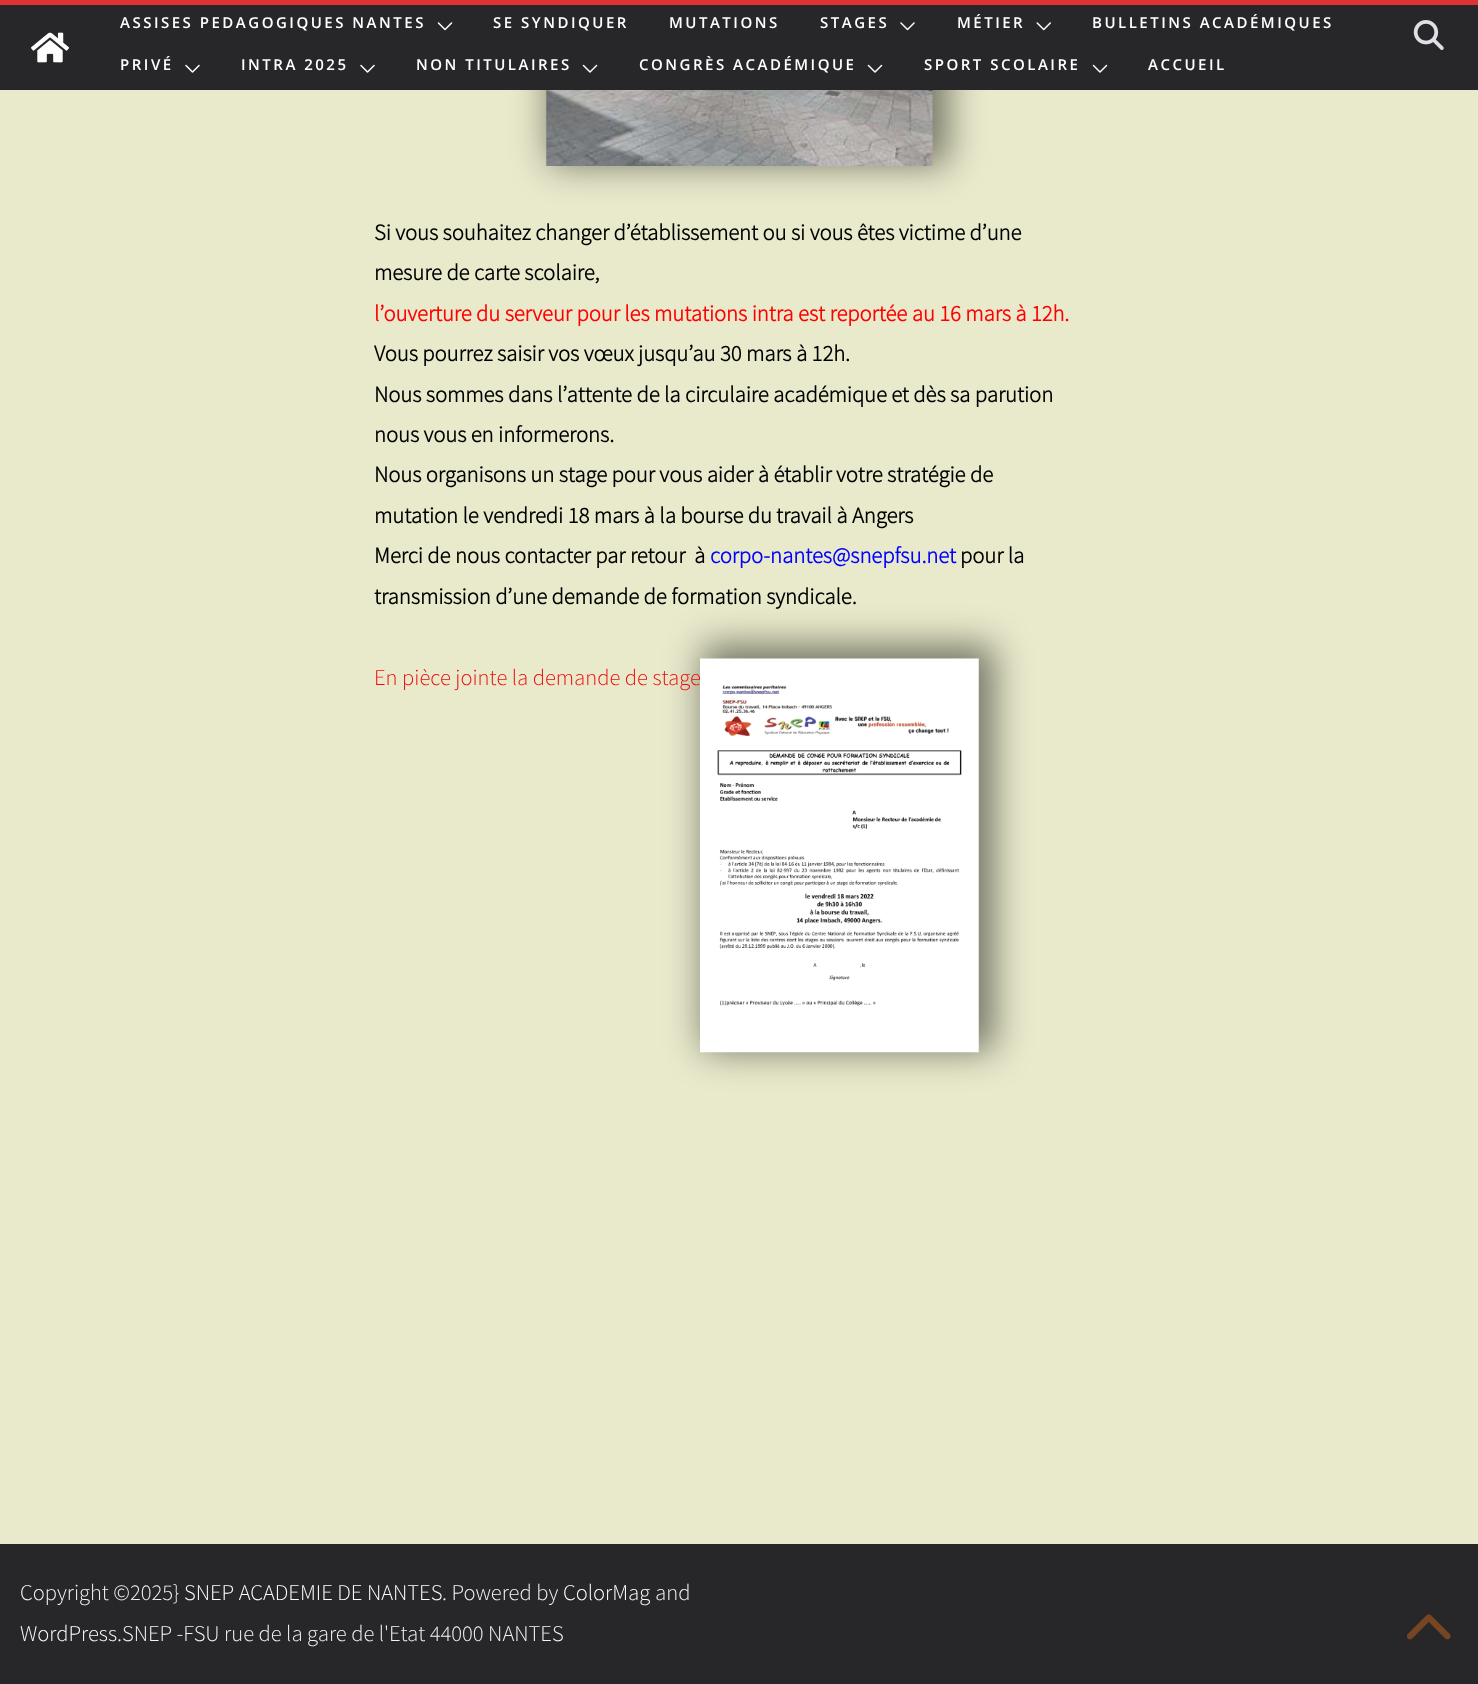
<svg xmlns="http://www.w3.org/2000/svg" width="1478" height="1684">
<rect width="100%" height="100%" fill="#e9eacc"/>
<rect x="549" y="-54" width="399" height="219" fill="#00000080" filter="blur(18px)"/>
<rect y="5" width="1478" height="85" fill="#27272a"/>
<rect width="1478" height="5" fill="#d33"/>
<image x="31" y="32" width="38" height="31" href="media/1.png"/>
<text x="120" y="28" style="font-family:Open Sans;font-size:15px;font-weight:600;letter-spacing:2.5px;fill:#fff">ASSISES PEDAGOGIQUES NANTES</text>
<image x="437" y="22" width="16" height="9" href="media/2.png"/>
<text x="493" y="28" style="font-family:Open Sans;font-size:15px;font-weight:600;letter-spacing:2.5px;fill:#fff">SE SYNDIQUER</text>
<text x="669" y="28" style="font-family:Open Sans;font-size:15px;font-weight:600;letter-spacing:2.5px;fill:#fff">MUTATIONS</text>
<text x="820" y="28" style="font-family:Open Sans;font-size:15px;font-weight:600;letter-spacing:2.5px;fill:#fff">STAGES</text>
<image x="900" y="22" width="15" height="9" href="media/3.png"/>
<text x="957" y="28" style="font-family:Open Sans;font-size:15px;font-weight:600;letter-spacing:2.5px;fill:#fff">MÉTIER</text>
<image x="1036" y="22" width="15" height="9" href="media/4.png"/>
<text x="1092" y="28" style="font-family:Open Sans;font-size:15px;font-weight:600;letter-spacing:2.5px;fill:#fff">BULLETINS ACADÉMIQUES</text>
<text x="120" y="70" style="font-family:Open Sans;font-size:15px;font-weight:600;letter-spacing:2.5px;fill:#fff">PRIVÉ</text>
<image x="185" y="64" width="15" height="9" href="media/5.png"/>
<text x="241" y="70" style="font-family:Open Sans;font-size:15px;font-weight:600;letter-spacing:2.5px;fill:#fff">INTRA 2025</text>
<image x="360" y="64" width="15" height="9" href="media/5.png"/>
<text x="416" y="70" style="font-family:Open Sans;font-size:15px;font-weight:600;letter-spacing:2.5px;fill:#fff">NON TITULAIRES</text>
<image x="582" y="64" width="16" height="9" href="media/6.png"/>
<text x="639" y="70" style="font-family:Open Sans;font-size:15px;font-weight:600;letter-spacing:2.5px;fill:#fff">CONGRÈS ACADÉMIQUE</text>
<image x="867" y="64" width="16" height="9" href="media/6.png"/>
<text x="924" y="70" style="font-family:Open Sans;font-size:15px;font-weight:600;letter-spacing:2.5px;fill:#fff">SPORT SCOLAIRE</text>
<image x="1092" y="64" width="16" height="9" href="media/6.png"/>
<text x="1148" y="70" style="font-family:Open Sans;font-size:15px;font-weight:600;letter-spacing:2.5px;fill:#fff">ACCUEIL</text>
<image x="1413" y="20" width="31" height="30" href="media/7.png"/>
<image x="546" y="90" width="387" height="76" href="media/8.png"/>
<text x="374" y="240" style="font-family:Source Sans Pro;font-size:22.5px;font-weight:bold;fill:#000">Si vous souhaitez changer d’établissement ou si vous êtes victime d’une</text>
<text x="374" y="280" style="font-family:Source Sans Pro;font-size:22.5px;font-weight:bold;fill:#000">mesure de carte scolaire,</text>
<text x="374" y="321" style="font-family:Source Sans Pro;font-size:22.5px;font-weight:bold;fill:#f00">l’ouverture du serveur pour les mutations intra est reportée au 16 mars à 12h.</text>
<text x="374" y="361" style="font-family:Source Sans Pro;font-size:22.5px;font-weight:bold;fill:#000">Vous pourrez saisir vos vœux jusqu’au 30 mars à 12h.</text>
<text x="374" y="402" style="font-family:Source Sans Pro;font-size:22.5px;font-weight:bold;fill:#000">Nous sommes dans l’attente de la circulaire académique et dès sa parution</text>
<text x="374" y="442" style="font-family:Source Sans Pro;font-size:22.5px;font-weight:bold;fill:#000">nous vous en informerons.</text>
<text x="374" y="482" style="font-family:Source Sans Pro;font-size:22.5px;font-weight:bold;fill:#000">Nous organisons un stage pour vous aider à établir votre stratégie de</text>
<text x="374" y="523" style="font-family:Source Sans Pro;font-size:22.5px;font-weight:bold;fill:#000">mutation le vendredi 18 mars à la bourse du</text>
<text x="776" y="523" style="font-family:Source Sans Pro;font-size:22.5px;font-weight:bold;fill:#000">travail à Angers</text>
<text x="374" y="563" style="font-family:Source Sans Pro;font-size:22.5px;font-weight:bold;fill:#000">Merci de nous contacter par retour</text>
<text x="694" y="563" style="font-family:Source Sans Pro;font-size:22.5px;font-weight:bold;fill:#000">à</text>
<text x="710" y="563" style="font-family:Source Sans Pro;font-size:22.5px;font-weight:bold;fill:#00f">corpo-nantes@snepfsu.net</text>
<text x="960" y="563" style="font-family:Source Sans Pro;font-size:22.5px;font-weight:bold;fill:#000">pour la</text>
<text x="374" y="604" style="font-family:Source Sans Pro;font-size:22.5px;font-weight:bold;fill:#000">transmission d’une demande de formation syndicale.</text>
<rect x="703" y="645" width="291" height="406" fill="#00000080" filter="blur(18px)"/>
<text x="374" y="685" style="font-family:Source Sans Pro;font-size:22.5px;font-weight:300;fill:#ef0a0a">En pièce jointe la demande de stage</text>
<image x="700" y="658" width="279" height="395" href="media/9.png"/>
<rect y="1544" width="1478" height="140" fill="#27272a"/>
<text x="20" y="1600" style="font-family:Source Sans Pro;font-size:22.5px;font-weight:300;fill:#f4f4f5">Copyright ©2025}</text>
<text x="184" y="1600" style="font-family:Source Sans Pro;font-size:22.5px;font-weight:300;fill:#fff">SNEP ACADEMIE DE NANTES</text>
<text x="442" y="1600" style="font-family:Source Sans Pro;font-size:22.5px;font-weight:300;fill:#f4f4f5">. Powered by</text>
<text x="563" y="1600" style="font-family:Source Sans Pro;font-size:22.5px;font-weight:300;fill:#fff">ColorMag</text>
<text x="655" y="1600" style="font-family:Source Sans Pro;font-size:22.5px;font-weight:300;fill:#f4f4f5">and</text>
<text x="20" y="1641" style="font-family:Source Sans Pro;font-size:22.5px;font-weight:300;fill:#fff">WordPress</text>
<text x="117" y="1641" style="font-family:Source Sans Pro;font-size:22.5px;font-weight:300;fill:#f4f4f5">.SNEP -FSU rue de la gare de l'Etat 44000 NANTES</text>
<image x="1406" y="1614" width="45" height="26" href="media/10.png"/>
</svg>
